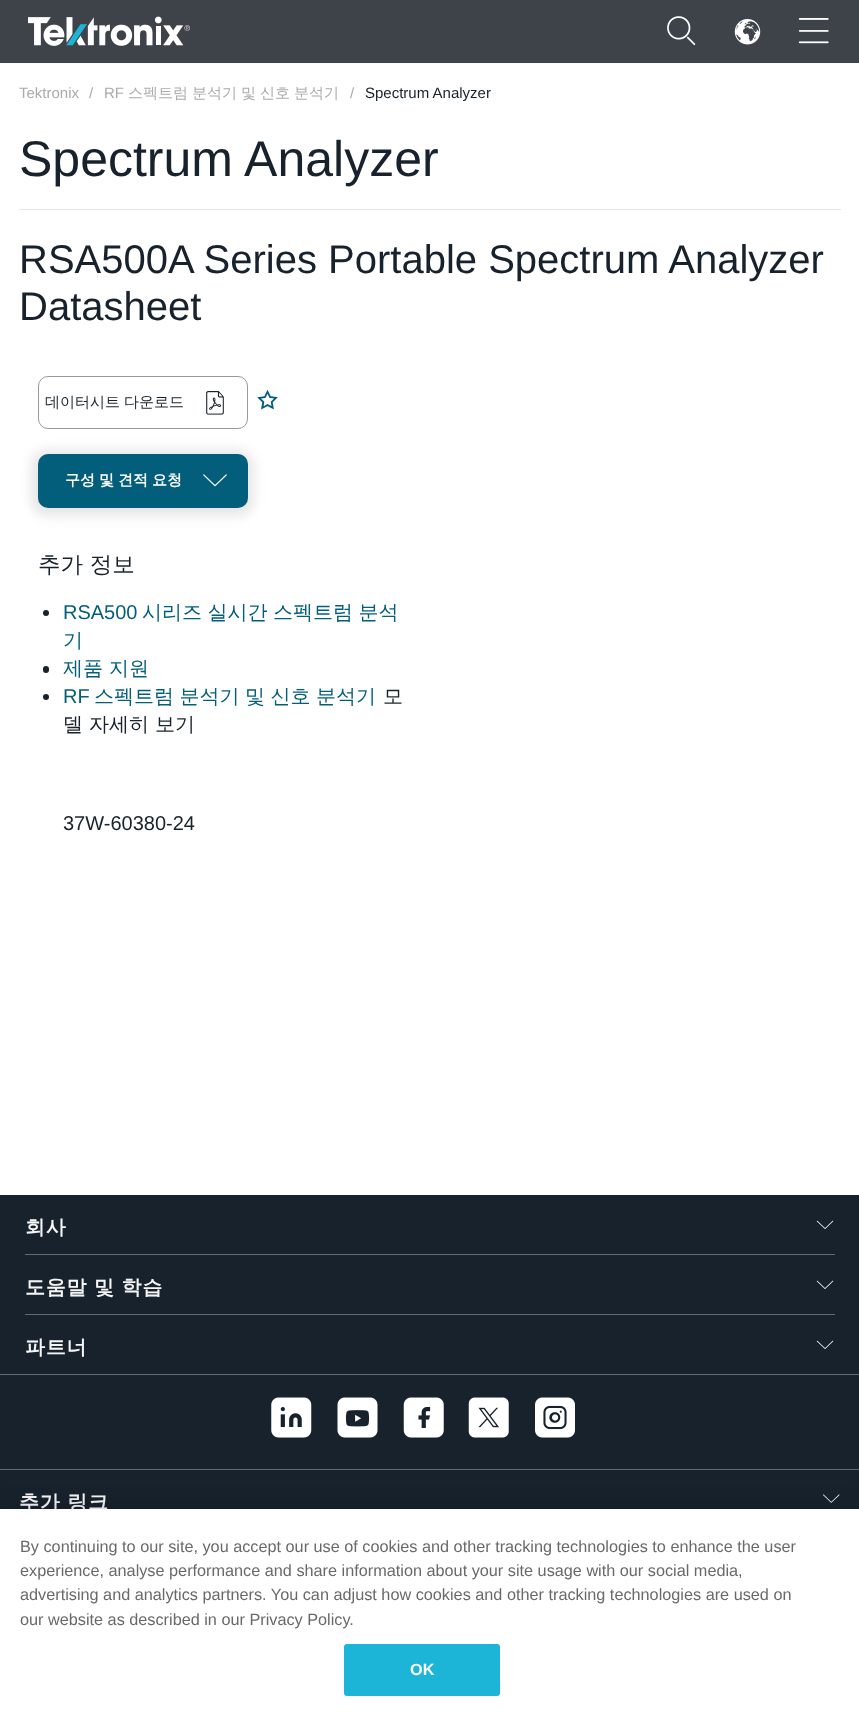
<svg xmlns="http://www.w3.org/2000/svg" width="859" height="1716">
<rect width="100%" height="100%" fill="#fff"/>
<rect width="859" height="63" fill="#3e434a"/>
<image x="28" y="16" width="162" height="30" href="media/1.png"/>
<image x="667" y="16" width="29" height="30" href="media/2.png"/>
<image x="734" y="19" width="27" height="26" href="media/3.png"/>
<image x="798" y="18" width="31" height="26" href="media/4.png"/>
<text x="19" y="98" style="font-family:Liberation Sans;font-size:15px;fill:#ababab">Tektronix</text>
<text x="89" y="98" style="font-family:Liberation Sans;font-size:15px;fill:#ababab">/</text>
<text x="104" y="98" style="font-family:Liberation Sans;font-size:15px;fill:#ababab">RF</text>
<text x="128" y="98" word-spacing="-0.5" style="font-family:WenQuanYi Zen Hei;font-size:15px;font-weight:500;fill:#ababab">스펙트럼 분석기 및 신호 분석기</text>
<text x="350" y="98" style="font-family:Liberation Sans;font-size:15px;fill:#ababab">/</text>
<text x="365" y="98" style="font-family:Liberation Sans;font-size:15px;fill:#17222c">Spectrum Analyzer</text>
<rect x="19" y="209" width="822" height="1" fill="#e5e5e5"/>
<text x="19" y="176" style="font-family:Liberation Sans;font-size:50px;fill:#17222c">Spectrum Analyzer</text>
<text x="19" y="273" style="font-family:Liberation Sans;font-size:40px;fill:#17222c">RSA500A Series Portable Spectrum Analyzer</text>
<text x="19" y="320" style="font-family:Liberation Sans;font-size:40px;fill:#17222c">Datasheet</text>
<rect x="38.5" y="376.5" width="209" height="52" rx="9.5" fill="none" stroke="#999"/>
<text x="45" y="407" word-spacing="-0.5" style="font-family:WenQuanYi Zen Hei;font-size:15px;font-weight:500;fill:#17222c">데이터시트 다운로드</text>
<image x="206" y="391" width="18" height="24" href="media/5.png"/>
<image x="257" y="389" width="21" height="21" href="media/6.png"/>
<rect x="31" y="450" width="223" height="66" rx="16" fill="#e6e6e6" filter="blur(6px)"/>
<rect x="38" y="454" width="210" height="54" rx="10" fill="#035e7c"/>
<text x="65" y="485" word-spacing="-0.5" style="font-family:WenQuanYi Zen Hei;font-size:15px;font-weight:bold;fill:#fff">구성 및 견적 요청</text>
<image x="203" y="474" width="24" height="13" href="media/7.png"/>
<text x="38" y="572" style="font-family:WenQuanYi Zen Hei;font-size:22.5px;font-weight:500;fill:#17222c">추가 정보</text>
<circle cx="46" cy="613" r="3" fill="#17222c"/>
<text x="63" y="619" style="font-family:Liberation Sans;font-size:20px;fill:#035e7c">RSA500</text>
<text x="142" y="619" word-spacing="-0.5" style="font-family:WenQuanYi Zen Hei;font-size:20px;font-weight:500;fill:#035e7c">시리즈 실시간 스펙트럼 분석</text>
<text x="63" y="647" style="font-family:WenQuanYi Zen Hei;font-size:20px;font-weight:500;fill:#035e7c">기</text>
<rect x="43" y="666" width="6" height="7" rx="3" fill="#17222c"/>
<text x="63" y="675" style="font-family:WenQuanYi Zen Hei;font-size:20px;font-weight:500;fill:#035e7c">제품 지원</text>
<circle cx="46" cy="697" r="3" fill="#17222c"/>
<text x="63" y="703" style="font-family:Liberation Sans;font-size:20px;fill:#035e7c">RF</text>
<text x="94" y="703" word-spacing="-0.5" style="font-family:WenQuanYi Zen Hei;font-size:20px;font-weight:500;fill:#035e7c">스펙트럼 분석기 및 신호 분석기</text>
<text x="383" y="703" style="font-family:WenQuanYi Zen Hei;font-size:20px;font-weight:500;fill:#17222c">모</text>
<text x="63" y="731" style="font-family:WenQuanYi Zen Hei;font-size:20px;font-weight:500;fill:#17222c">델 자세히 보기</text>
<text x="63" y="830" style="font-family:Liberation Sans;font-size:20px;fill:#17222c">37W-60380-24</text>
<rect y="1195" width="859" height="274" fill="#17222c"/>
<text x="25" y="1234" style="font-family:WenQuanYi Zen Hei;font-size:20px;font-weight:bold;letter-spacing:0.75px;fill:#f5f5f5">회사</text>
<image x="816" y="1220" width="18" height="9" href="media/8.png"/>
<rect x="25" y="1254" width="810" height="1" fill="#5e6975"/>
<text x="25" y="1294" style="font-family:WenQuanYi Zen Hei;font-size:20px;font-weight:bold;letter-spacing:0.75px;fill:#f5f5f5">도움말 및 학습</text>
<image x="816" y="1280" width="18" height="9" href="media/8.png"/>
<rect x="25" y="1314" width="810" height="1" fill="#5e6975"/>
<text x="25" y="1354" style="font-family:WenQuanYi Zen Hei;font-size:20px;font-weight:bold;letter-spacing:0.75px;fill:#f5f5f5">파트너</text>
<image x="816" y="1340" width="18" height="9" href="media/8.png"/>
<rect y="1374" width="859" height="1" fill="#5e6975"/>
<image x="271" y="1397" width="41" height="41" href="media/9.png"/>
<image x="337" y="1397" width="41" height="41" href="media/10.png"/>
<image x="403" y="1397" width="41" height="41" href="media/11.png"/>
<image x="468" y="1397" width="41" height="41" href="media/12.png"/>
<image x="535" y="1397" width="40" height="41" href="media/13.png"/>
<rect y="1470" width="859" height="39" fill="#17222c"/>
<rect y="1469" width="859" height="1" fill="#5e6975"/>
<text x="19" y="1509" style="font-family:WenQuanYi Zen Hei;font-size:20px;font-weight:bold;letter-spacing:0.75px;fill:#f5f5f5">추가 링크</text>
<image x="823" y="1494" width="17" height="9" href="media/14.png"/>
<rect y="1509" width="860" height="207" fill="#00000033" filter="blur(11px)"/>
<rect y="1509" width="859" height="207" fill="#fff"/>
<text x="20" y="1552" style="font-family:Liberation Sans;font-size:16.25px;fill:#696969">By continuing to our site, you accept our use of cookies and other tracking technologies to enhance the user</text>
<text x="20" y="1576" style="font-family:Liberation Sans;font-size:16.25px;fill:#696969">experience, analyse performance and share information about your site usage with our social media,</text>
<text x="20" y="1600" style="font-family:Liberation Sans;font-size:16.25px;fill:#696969">advertising and analytics partners. You can adjust how cookies and other tracking technologies are used on</text>
<text x="20" y="1625" style="font-family:Liberation Sans;font-size:16.25px;fill:#696969">our website as described in our Privacy Policy.</text>
<rect x="344.5" y="1644.5" width="155" height="51" rx="2" fill="#1cb5d8" stroke="#1cb5d8"/>
<text x="410" y="1675" style="font-family:Liberation Sans;font-size:16.25px;font-weight:bold;fill:#fff">OK</text>
</svg>
